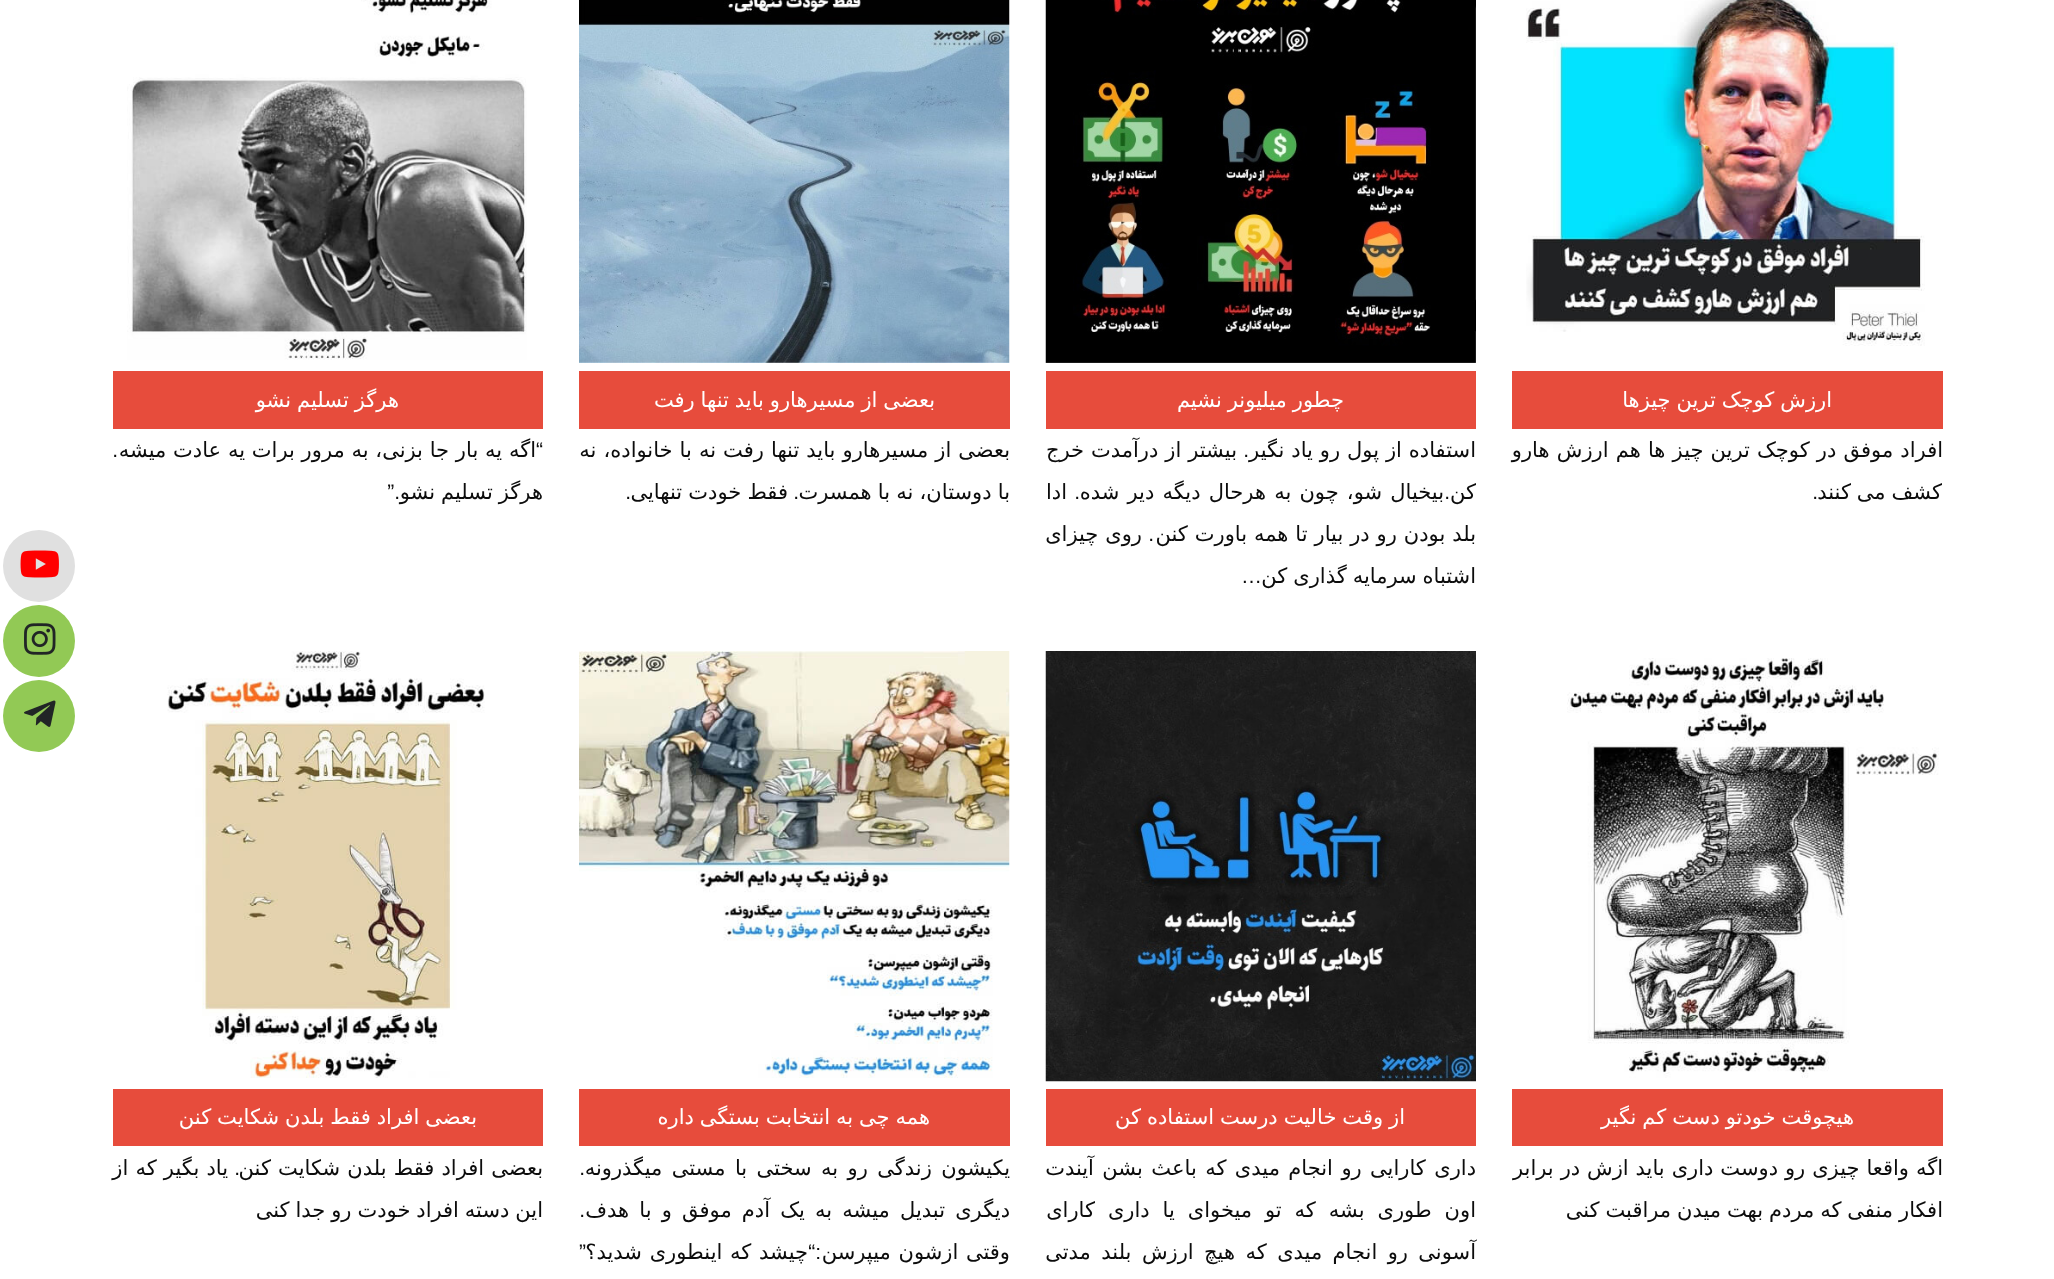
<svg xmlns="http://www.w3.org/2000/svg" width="2054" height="1279">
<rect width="100%" height="100%" fill="#fff"/>
<image x="1526" y="0" width="399" height="346" href="media/1.png"/>
<rect x="1512" y="371" width="431" height="58" fill="#e74c3c"/>
<text x="1832" y="407" word-spacing="-0.75" style="font-family:DejaVu Sans;font-size:21px;direction:rtl;fill:#fff">ارزش کوچک ترین چیزها</text>
<text x="1943" y="457" word-spacing="0.5" style="font-family:DejaVu Sans;font-size:21px;direction:rtl;fill:#0c0c0c">افراد موفق در کوچک ترین چیز ها هم ارزش هارو</text>
<text x="1942" y="499" word-spacing="-0.75" style="font-family:DejaVu Sans;font-size:21px;direction:rtl;fill:#0c0c0c">کشف می کنند</text>
<text x="1818" y="499" style="font-family:Liberation Sans;font-size:21px;direction:rtl;fill:#0c0c0c">.</text>
<image x="1045" y="0" width="431" height="363" href="media/2.png"/>
<rect x="1046" y="371" width="430" height="58" fill="#e74c3c"/>
<text x="1344" y="407" word-spacing="-0.75" style="font-family:DejaVu Sans;font-size:21px;direction:rtl;fill:#fff">چطور میلیونر نشیم</text>
<text x="1476" y="457" word-spacing="0.25" style="font-family:DejaVu Sans;font-size:21px;direction:rtl;fill:#0c0c0c">استفاده از پول رو یاد نگیر</text>
<text x="1249" y="457" style="font-family:Liberation Sans;font-size:21px;direction:rtl;fill:#0c0c0c">.</text>
<text x="1237" y="457" word-spacing="0.25" style="font-family:DejaVu Sans;font-size:21px;direction:rtl;fill:#0c0c0c">بیشتر از درآمدت خرج</text>
<text x="1476" y="499" style="font-family:DejaVu Sans;font-size:21px;direction:rtl;fill:#0c0c0c">کن</text>
<text x="1450" y="499" style="font-family:Liberation Sans;font-size:21px;direction:rtl;fill:#0c0c0c">.</text>
<text x="1444" y="499" word-spacing="1.5" style="font-family:DejaVu Sans;font-size:21px;direction:rtl;fill:#0c0c0c">بیخیال شو، چون به هرحال دیگه دیر شده</text>
<text x="1080" y="499" style="font-family:Liberation Sans;font-size:21px;direction:rtl;fill:#0c0c0c">.</text>
<text x="1067" y="499" style="font-family:DejaVu Sans;font-size:21px;direction:rtl;fill:#0c0c0c">ادا</text>
<text x="1476" y="541" word-spacing="0.25" style="font-family:DejaVu Sans;font-size:21px;direction:rtl;fill:#0c0c0c">بلد بودن رو در بیار تا همه باورت کنن</text>
<text x="1154" y="541" style="font-family:Liberation Sans;font-size:21px;direction:rtl;fill:#0c0c0c">.</text>
<text x="1142" y="541" word-spacing="0.25" style="font-family:DejaVu Sans;font-size:21px;direction:rtl;fill:#0c0c0c">روی چیزای</text>
<text x="1476" y="583" word-spacing="-0.75" style="font-family:DejaVu Sans;font-size:21px;direction:rtl;fill:#0c0c0c">اشتباه سرمایه گذاری کن</text>
<text x="1262" y="583" style="font-family:Liberation Sans;font-size:21px;direction:rtl;fill:#0c0c0c">…</text>
<image x="579" y="0" width="431" height="363" href="media/3.png"/>
<rect x="579" y="371" width="431" height="58" fill="#e74c3c"/>
<text x="935" y="407" word-spacing="-0.75" style="font-family:DejaVu Sans;font-size:21px;direction:rtl;fill:#fff">بعضی از مسیرهارو باید تنها رفت</text>
<text x="1010" y="457" word-spacing="0.4" style="font-family:DejaVu Sans;font-size:21px;direction:rtl;fill:#0c0c0c">بعضی از مسیرهارو باید تنها رفت نه با خانواده، نه</text>
<text x="1010" y="499" word-spacing="-0.5" style="font-family:DejaVu Sans;font-size:21px;direction:rtl;fill:#0c0c0c">با دوستان، نه با همسرت</text>
<text x="799" y="499" style="font-family:Liberation Sans;font-size:21px;direction:rtl;fill:#0c0c0c">.</text>
<text x="788" y="499" word-spacing="-0.5" style="font-family:DejaVu Sans;font-size:21px;direction:rtl;fill:#0c0c0c">فقط خودت تنهایی</text>
<text x="631" y="499" style="font-family:Liberation Sans;font-size:21px;direction:rtl;fill:#0c0c0c">.</text>
<image x="127" y="0" width="400" height="360" href="media/4.png"/>
<rect x="113" y="371" width="430" height="58" fill="#e74c3c"/>
<text x="399" y="407" word-spacing="-0.75" style="font-family:DejaVu Sans;font-size:21px;direction:rtl;fill:#fff">هرگز تسلیم نشو</text>
<text x="543" y="457" style="font-family:Liberation Sans;font-size:21px;direction:rtl;fill:#0c0c0c">“</text>
<text x="536" y="457" word-spacing="0.1" style="font-family:DejaVu Sans;font-size:21px;direction:rtl;fill:#0c0c0c">اگه یه بار جا بزنی، به مرور برات یه عادت میشه</text>
<text x="118" y="457" style="font-family:Liberation Sans;font-size:21px;direction:rtl;fill:#0c0c0c">.</text>
<text x="400" y="499" style="font-family:Liberation Sans;font-size:21px;direction:rtl;fill:#0c0c0c">.”</text>
<text x="543" y="499" word-spacing="-0.75" style="font-family:DejaVu Sans;font-size:21px;direction:rtl;fill:#0c0c0c">هرگز تسلیم نشو</text>
<image x="1567" y="658" width="372" height="420" href="media/5.png"/>
<rect x="1512" y="1089" width="431" height="57" fill="#e74c3c"/>
<text x="1854" y="1124" word-spacing="-0.75" style="font-family:DejaVu Sans;font-size:21px;direction:rtl;fill:#fff">هیچوقت خودتو دست کم نگیر</text>
<text x="1943" y="1175" word-spacing="0.25" style="font-family:DejaVu Sans;font-size:21px;direction:rtl;fill:#0c0c0c">اگه واقعا چیزی رو دوست داری باید ازش در برابر</text>
<text x="1943" y="1217" word-spacing="-0.75" style="font-family:DejaVu Sans;font-size:21px;direction:rtl;fill:#0c0c0c">افکار منفی که مردم بهت میدن مراقبت کنی</text>
<image x="1045" y="651" width="431" height="431" href="media/6.png"/>
<rect x="1046" y="1089" width="430" height="57" fill="#e74c3c"/>
<text x="1405" y="1124" word-spacing="-0.75" style="font-family:DejaVu Sans;font-size:21px;direction:rtl;fill:#fff">از وقت خالیت درست استفاده کن</text>
<text x="1476" y="1175" word-spacing="1.75" style="font-family:DejaVu Sans;font-size:21px;direction:rtl;fill:#0c0c0c">داری کارایی رو انجام میدی که باعث بشن آیندت</text>
<text x="1476" y="1217" word-spacing="6.25" style="font-family:DejaVu Sans;font-size:21px;direction:rtl;fill:#0c0c0c">اون طوری بشه که تو میخوای یا داری کارای</text>
<text x="1476" y="1259" word-spacing="3.75" style="font-family:DejaVu Sans;font-size:21px;direction:rtl;fill:#0c0c0c">آسونی رو انجام میدی که هیچ ارزش بلند مدتی</text>
<image x="579" y="651" width="431" height="427" href="media/7.png"/>
<rect x="579" y="1089" width="431" height="57" fill="#e74c3c"/>
<text x="930" y="1124" word-spacing="-0.75" style="font-family:DejaVu Sans;font-size:21px;direction:rtl;fill:#fff">همه چی به انتخابت بستگی داره</text>
<text x="1010" y="1175" word-spacing="2.75" style="font-family:DejaVu Sans;font-size:21px;direction:rtl;fill:#0c0c0c">یکیشون زندگی رو به سختی با مستی میگذرونه</text>
<text x="585" y="1175" style="font-family:Liberation Sans;font-size:21px;direction:rtl;fill:#0c0c0c">.</text>
<text x="1010" y="1217" word-spacing="3.5" style="font-family:DejaVu Sans;font-size:21px;direction:rtl;fill:#0c0c0c">دیگری تبدیل میشه به یک آدم موفق و با هدف</text>
<text x="585" y="1217" style="font-family:Liberation Sans;font-size:21px;direction:rtl;fill:#0c0c0c">.</text>
<text x="1010" y="1259" word-spacing="1" style="font-family:DejaVu Sans;font-size:21px;direction:rtl;fill:#0c0c0c">وقتی ازشون میپرسن</text>
<text x="821" y="1259" style="font-family:Liberation Sans;font-size:21px;direction:rtl;fill:#0c0c0c">:“</text>
<text x="808" y="1259" word-spacing="1" style="font-family:DejaVu Sans;font-size:21px;direction:rtl;fill:#0c0c0c">چیشد که اینطوری شدید؟</text>
<text x="586" y="1259" style="font-family:Liberation Sans;font-size:21px;direction:rtl;fill:#0c0c0c">”</text>
<image x="167" y="651" width="318" height="427" href="media/8.png"/>
<rect x="113" y="1089" width="430" height="57" fill="#e74c3c"/>
<text x="477" y="1124" word-spacing="-0.75" style="font-family:DejaVu Sans;font-size:21px;direction:rtl;fill:#fff">بعضی افراد فقط بلدن شکایت کنن</text>
<text x="543" y="1175" word-spacing="0.5" style="font-family:DejaVu Sans;font-size:21px;direction:rtl;fill:#0c0c0c">بعضی افراد فقط بلدن شکایت کنن</text>
<text x="240" y="1175" style="font-family:Liberation Sans;font-size:21px;direction:rtl;fill:#0c0c0c">.</text>
<text x="228" y="1175" word-spacing="0.5" style="font-family:DejaVu Sans;font-size:21px;direction:rtl;fill:#0c0c0c">یاد بگیر که از</text>
<text x="543" y="1217" word-spacing="-0.75" style="font-family:DejaVu Sans;font-size:21px;direction:rtl;fill:#0c0c0c">این دسته افراد خودت رو جدا کنی</text>
<circle cx="39" cy="566" r="36" fill="#e0e0e0"/>
<image x="20" y="550" width="39" height="28" href="media/9.png"/>
<circle cx="39" cy="641" r="36" fill="#92c955"/>
<image x="24" y="623" width="32" height="32" href="media/10.png"/>
<circle cx="39" cy="716" r="36" fill="#92c955"/>
<image x="24" y="700" width="32" height="27" href="media/11.png"/>
</svg>
